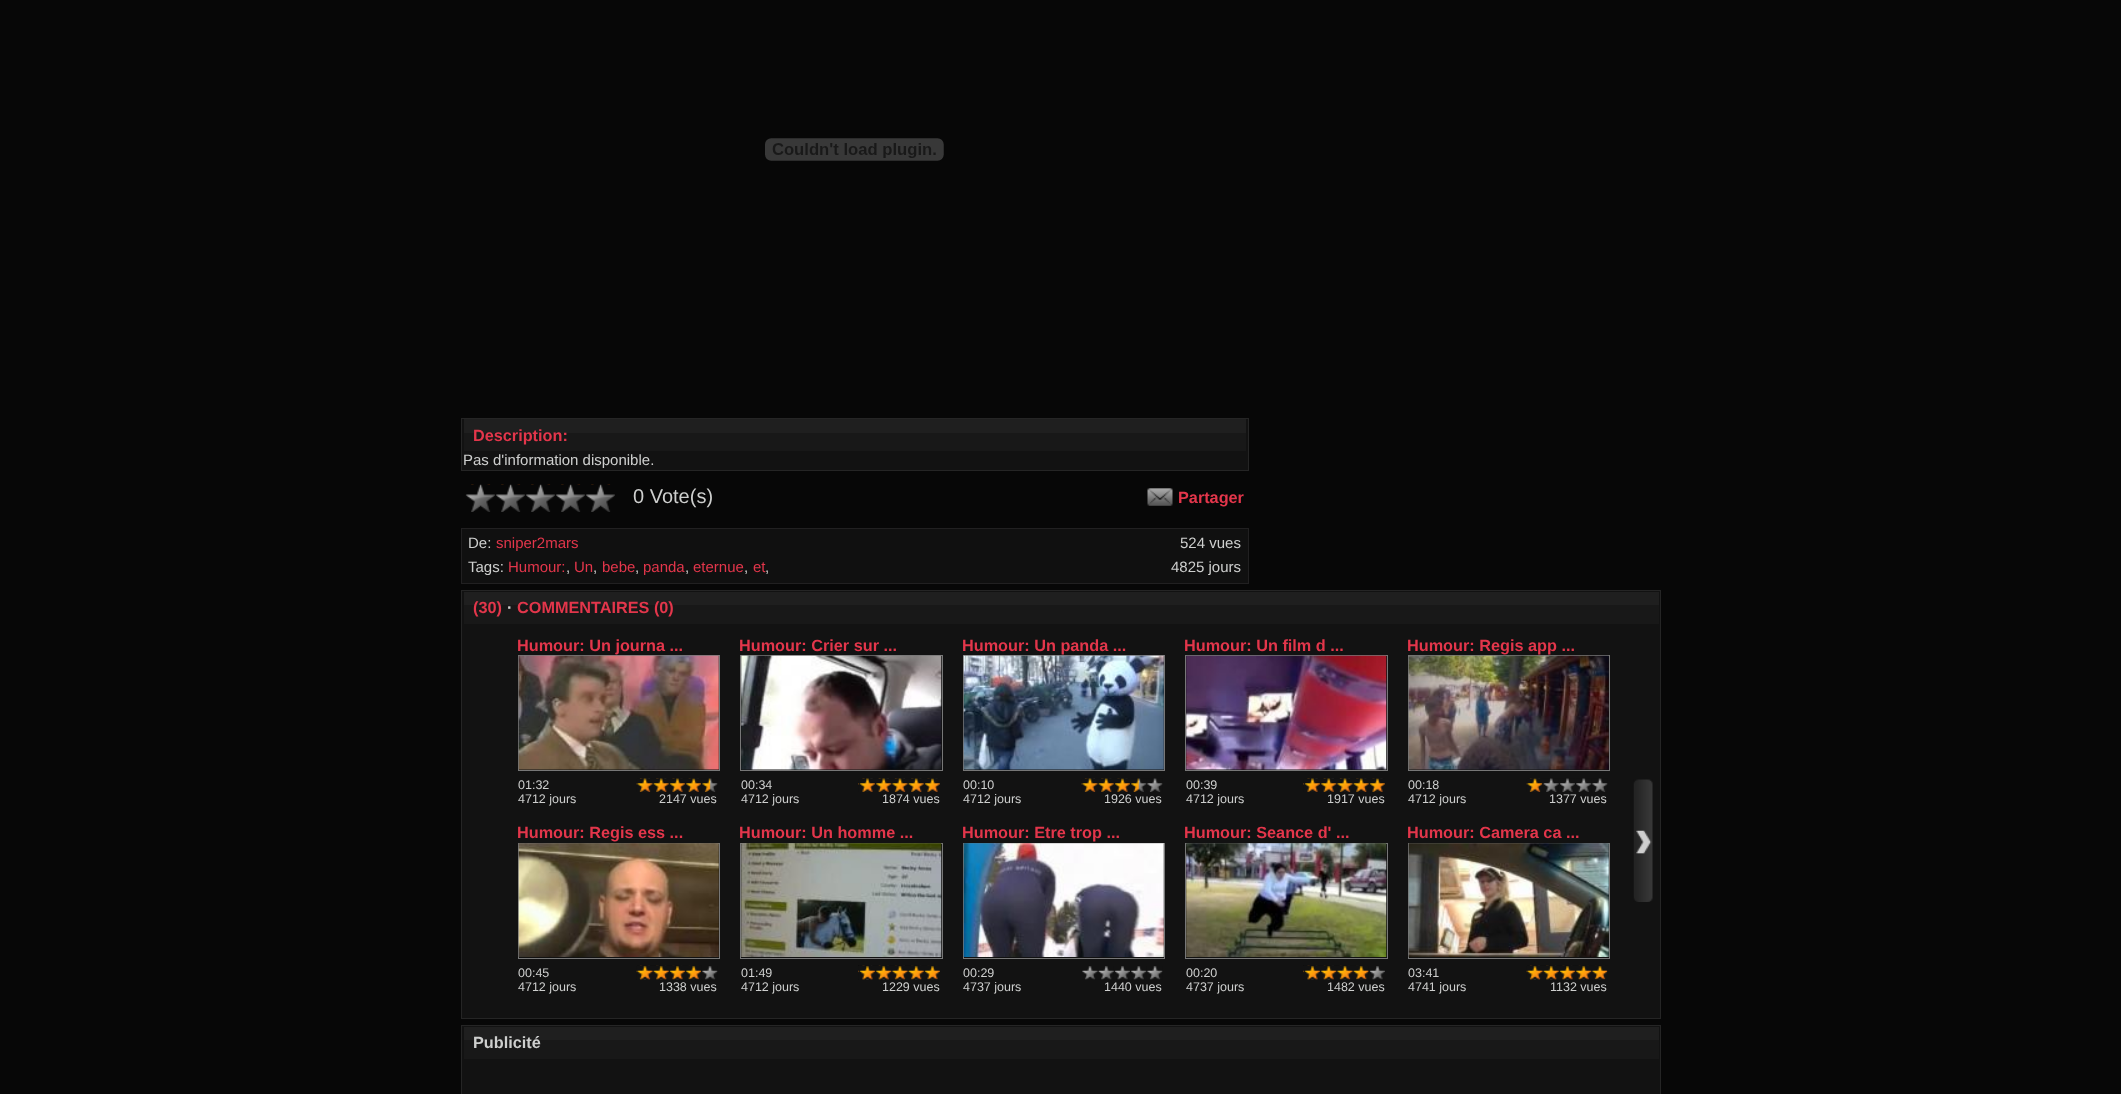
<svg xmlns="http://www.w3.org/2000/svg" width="2121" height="1094">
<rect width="100%" height="100%" fill="#070707"/>
<image x="765" y="138" width="179" height="23" href="media/1.png"/>
<rect x="461.5" y="418.5" width="787" height="52" fill="#121212" stroke="#252525"/>
<rect x="464" y="433" width="782" height="18" fill="#181818"/>
<rect x="464" y="419" width="782" height="14" fill="#1f1f1f"/>
<text x="473" y="441" style="font-family:Liberation Sans;font-size:16.25px;font-weight:bold;fill:#e3364b">Description:</text>
<text x="463" y="465" style="font-family:Liberation Sans;font-size:15px;fill:#cecfce">Pas d'information disponible.</text>
<image x="465" y="484" width="150" height="28" href="media/2.png"/>
<text x="633" y="503" style="font-family:Liberation Sans;font-size:20px;fill:#cecfce">0 Vote(s)</text>
<image x="1147" y="488" width="26" height="18" href="media/3.png"/>
<text x="1178" y="503" style="font-family:Liberation Sans;font-size:16.25px;font-weight:bold;fill:#e3364b">Partager</text>
<rect x="461.5" y="528.5" width="787" height="55" fill="#101010" stroke="#212021"/>
<text x="468" y="548" style="font-family:Liberation Sans;font-size:15px;fill:#cecfce">De:</text>
<text x="496" y="548" style="font-family:Liberation Sans;font-size:15px;fill:#e3364b">sniper2mars</text>
<text x="1180" y="548" style="font-family:Liberation Sans;font-size:15px;fill:#cecfce">524 vues</text>
<text x="468" y="572" style="font-family:Liberation Sans;font-size:15px;fill:#cecfce">Tags:</text>
<text x="508" y="572" style="font-family:Liberation Sans;font-size:15px;fill:#e3364b">Humour:</text>
<text x="566" y="572" style="font-family:Liberation Sans;font-size:15px;fill:#cecfce">,</text>
<text x="574" y="572" style="font-family:Liberation Sans;font-size:15px;fill:#e3364b">Un</text>
<text x="593" y="572" style="font-family:Liberation Sans;font-size:15px;fill:#cecfce">,</text>
<text x="602" y="572" style="font-family:Liberation Sans;font-size:15px;fill:#e3364b">bebe</text>
<text x="635" y="572" style="font-family:Liberation Sans;font-size:15px;fill:#cecfce">,</text>
<text x="643" y="572" style="font-family:Liberation Sans;font-size:15px;fill:#e3364b">panda</text>
<text x="685" y="572" style="font-family:Liberation Sans;font-size:15px;fill:#cecfce">,</text>
<text x="693" y="572" style="font-family:Liberation Sans;font-size:15px;fill:#e3364b">eternue</text>
<text x="744" y="572" style="font-family:Liberation Sans;font-size:15px;fill:#cecfce">,</text>
<text x="753" y="572" style="font-family:Liberation Sans;font-size:15px;fill:#e3364b">et</text>
<text x="765" y="572" style="font-family:Liberation Sans;font-size:15px;fill:#cecfce">,</text>
<text x="1171" y="572" style="font-family:Liberation Sans;font-size:15px;fill:#cecfce">4825 jours</text>
<rect x="461.5" y="590.5" width="1199" height="428" fill="#121212" stroke="#252525"/>
<rect x="464" y="605" width="1195" height="19" fill="#181818"/>
<rect x="464" y="592" width="1195" height="13" fill="#1f1f1f"/>
<text x="473" y="613" style="font-family:Liberation Sans;font-size:16.25px;font-weight:bold;fill:#e3364b">(30)</text>
<text x="507" y="613" style="font-family:Liberation Sans;font-size:16.25px;font-weight:bold;fill:#cecfce">·</text>
<text x="517" y="613" style="font-family:Liberation Sans;font-size:16.25px;font-weight:bold;fill:#e3364b">COMMENTAIRES (0)</text>
<text x="517" y="651" style="font-family:Liberation Sans;font-size:16.25px;font-weight:bold;fill:#e3364b">Humour: Un journa ...</text>
<rect x="518.5" y="655.5" width="201" height="115" fill="none" stroke="#777"/>
<image x="518" y="655" width="201" height="115" href="media/4.png"/>
<text x="518" y="789" style="font-family:Liberation Sans;font-size:12.5px;fill:#cecfce">01:32</text>
<text x="518" y="803" style="font-family:Liberation Sans;font-size:12.5px;fill:#cecfce">4712 jours</text>
<image x="636" y="778" width="66" height="14" href="media/5.png"/>
<image x="636" y="778" width="43" height="7" href="media/6.png"/>
<image x="640" y="778" width="22" height="1" href="media/7.png"/>
<image x="701" y="778" width="17" height="14" href="media/8.png"/>
<text x="659" y="803" style="font-family:Liberation Sans;font-size:12.5px;fill:#cecfce">2147 vues</text>
<text x="739" y="651" style="font-family:Liberation Sans;font-size:16.25px;font-weight:bold;fill:#e3364b">Humour: Crier sur ...</text>
<rect x="740.5" y="655.5" width="202" height="115" fill="none" stroke="#777"/>
<image x="741" y="655" width="201" height="115" href="media/9.png"/>
<text x="741" y="789" style="font-family:Liberation Sans;font-size:12.5px;fill:#cecfce">00:34</text>
<text x="741" y="803" style="font-family:Liberation Sans;font-size:12.5px;fill:#cecfce">4712 jours</text>
<image x="858" y="778" width="82" height="14" href="media/10.png"/>
<image x="858" y="778" width="60" height="7" href="media/11.png"/>
<image x="858" y="778" width="43" height="7" href="media/12.png"/>
<image x="858" y="783" width="1" height="2" href="media/13.png"/>
<image x="858" y="783" width="1" height="2" href="media/14.png"/>
<text x="882" y="803" style="font-family:Liberation Sans;font-size:12.5px;fill:#cecfce">1874 vues</text>
<text x="962" y="651" style="font-family:Liberation Sans;font-size:16.25px;font-weight:bold;fill:#e3364b">Humour: Un panda ...</text>
<rect x="963.5" y="655.5" width="201" height="115" fill="none" stroke="#777"/>
<image x="963" y="655" width="201" height="115" href="media/15.png"/>
<text x="963" y="789" style="font-family:Liberation Sans;font-size:12.5px;fill:#cecfce">00:10</text>
<text x="963" y="803" style="font-family:Liberation Sans;font-size:12.5px;fill:#cecfce">4712 jours</text>
<image x="1081" y="778" width="49" height="14" href="media/16.png"/>
<image x="1081" y="778" width="27" height="7" href="media/17.png"/>
<image x="1085" y="778" width="6" height="1" href="media/18.png"/>
<image x="1131" y="778" width="16" height="14" href="media/19.png"/>
<image x="1147" y="778" width="16" height="14" href="media/20.png"/>
<text x="1104" y="803" style="font-family:Liberation Sans;font-size:12.5px;fill:#cecfce">1926 vues</text>
<text x="1184" y="651" style="font-family:Liberation Sans;font-size:16.25px;font-weight:bold;fill:#e3364b">Humour: Un film d ...</text>
<rect x="1185.5" y="655.5" width="202" height="115" fill="none" stroke="#777"/>
<image x="1186" y="655" width="201" height="115" href="media/21.png"/>
<text x="1186" y="789" style="font-family:Liberation Sans;font-size:12.5px;fill:#cecfce">00:39</text>
<text x="1186" y="803" style="font-family:Liberation Sans;font-size:12.5px;fill:#cecfce">4712 jours</text>
<image x="1303" y="778" width="82" height="14" href="media/22.png"/>
<image x="1303" y="778" width="60" height="7" href="media/23.png"/>
<image x="1303" y="778" width="43" height="7" href="media/24.png"/>
<image x="1303" y="783" width="1" height="2" href="media/13.png"/>
<image x="1303" y="783" width="1" height="2" href="media/14.png"/>
<text x="1327" y="803" style="font-family:Liberation Sans;font-size:12.5px;fill:#cecfce">1917 vues</text>
<text x="1407" y="651" style="font-family:Liberation Sans;font-size:16.25px;font-weight:bold;fill:#e3364b">Humour: Regis app ...</text>
<rect x="1408.5" y="655.5" width="201" height="115" fill="none" stroke="#777"/>
<image x="1408" y="655" width="201" height="115" href="media/25.png"/>
<text x="1408" y="789" style="font-family:Liberation Sans;font-size:12.5px;fill:#cecfce">00:18</text>
<text x="1408" y="803" style="font-family:Liberation Sans;font-size:12.5px;fill:#cecfce">4712 jours</text>
<image x="1526" y="778" width="17" height="14" href="media/26.png"/>
<image x="1542" y="778" width="17" height="14" href="media/27.png"/>
<image x="1559" y="778" width="16" height="14" href="media/28.png"/>
<image x="1576" y="778" width="16" height="14" href="media/29.png"/>
<image x="1592" y="778" width="16" height="14" href="media/20.png"/>
<text x="1549" y="803" style="font-family:Liberation Sans;font-size:12.5px;fill:#cecfce">1377 vues</text>
<text x="517" y="838" style="font-family:Liberation Sans;font-size:16.25px;font-weight:bold;fill:#e3364b">Humour: Regis ess ...</text>
<rect x="518.5" y="843.5" width="201" height="115" fill="none" stroke="#777"/>
<image x="518" y="843" width="201" height="114" href="media/30.png"/>
<text x="518" y="977" style="font-family:Liberation Sans;font-size:12.5px;fill:#cecfce">00:45</text>
<text x="518" y="991" style="font-family:Liberation Sans;font-size:12.5px;fill:#cecfce">4712 jours</text>
<image x="636" y="965" width="66" height="15" href="media/31.png"/>
<image x="636" y="965" width="47" height="15" href="media/32.png"/>
<image x="640" y="965" width="26" height="15" href="media/33.png"/>
<image x="640" y="965" width="10" height="15" href="media/34.png"/>
<image x="701" y="966" width="17" height="14" href="media/35.png"/>
<text x="659" y="991" style="font-family:Liberation Sans;font-size:12.5px;fill:#cecfce">1338 vues</text>
<text x="739" y="838" style="font-family:Liberation Sans;font-size:16.25px;font-weight:bold;fill:#e3364b">Humour: Un homme ...</text>
<rect x="740.5" y="843.5" width="202" height="115" fill="none" stroke="#777"/>
<image x="741" y="843" width="201" height="114" href="media/36.png"/>
<text x="741" y="977" style="font-family:Liberation Sans;font-size:12.5px;fill:#cecfce">01:49</text>
<text x="741" y="991" style="font-family:Liberation Sans;font-size:12.5px;fill:#cecfce">4712 jours</text>
<image x="858" y="965" width="82" height="15" href="media/37.png"/>
<image x="858" y="965" width="64" height="15" href="media/38.png"/>
<image x="858" y="965" width="47" height="15" href="media/39.png"/>
<image x="858" y="965" width="31" height="15" href="media/40.png"/>
<image x="858" y="965" width="14" height="15" href="media/41.png"/>
<text x="882" y="991" style="font-family:Liberation Sans;font-size:12.5px;fill:#cecfce">1229 vues</text>
<text x="962" y="838" style="font-family:Liberation Sans;font-size:16.25px;font-weight:bold;fill:#e3364b">Humour: Etre trop ...</text>
<rect x="963.5" y="843.5" width="201" height="115" fill="none" stroke="#777"/>
<image x="963" y="843" width="201" height="114" href="media/42.png"/>
<text x="963" y="977" style="font-family:Liberation Sans;font-size:12.5px;fill:#cecfce">00:29</text>
<text x="963" y="991" style="font-family:Liberation Sans;font-size:12.5px;fill:#cecfce">4737 jours</text>
<image x="1082" y="966" width="16" height="14" href="media/43.png"/>
<image x="1098" y="966" width="16" height="14" href="media/44.png"/>
<image x="1114" y="966" width="16" height="14" href="media/45.png"/>
<image x="1131" y="966" width="16" height="14" href="media/46.png"/>
<image x="1147" y="966" width="16" height="14" href="media/47.png"/>
<text x="1104" y="991" style="font-family:Liberation Sans;font-size:12.5px;fill:#cecfce">1440 vues</text>
<text x="1184" y="838" style="font-family:Liberation Sans;font-size:16.25px;font-weight:bold;fill:#e3364b">Humour: Seance d' ...</text>
<rect x="1185.5" y="843.5" width="202" height="115" fill="none" stroke="#777"/>
<image x="1186" y="843" width="201" height="114" href="media/48.png"/>
<text x="1186" y="977" style="font-family:Liberation Sans;font-size:12.5px;fill:#cecfce">00:20</text>
<text x="1186" y="991" style="font-family:Liberation Sans;font-size:12.5px;fill:#cecfce">4737 jours</text>
<image x="1303" y="965" width="66" height="15" href="media/49.png"/>
<image x="1303" y="965" width="47" height="15" href="media/50.png"/>
<image x="1303" y="965" width="31" height="15" href="media/51.png"/>
<image x="1303" y="965" width="15" height="15" href="media/52.png"/>
<image x="1368" y="966" width="17" height="14" href="media/53.png"/>
<text x="1327" y="991" style="font-family:Liberation Sans;font-size:12.5px;fill:#cecfce">1482 vues</text>
<text x="1407" y="838" style="font-family:Liberation Sans;font-size:16.25px;font-weight:bold;fill:#e3364b">Humour: Camera ca ...</text>
<rect x="1408.5" y="843.5" width="201" height="115" fill="none" stroke="#777"/>
<image x="1408" y="843" width="201" height="114" href="media/54.png"/>
<text x="1408" y="977" style="font-family:Liberation Sans;font-size:12.5px;fill:#cecfce">03:41</text>
<text x="1408" y="991" style="font-family:Liberation Sans;font-size:12.5px;fill:#cecfce">4741 jours</text>
<image x="1526" y="965" width="82" height="15" href="media/55.png"/>
<image x="1526" y="965" width="63" height="15" href="media/56.png"/>
<image x="1530" y="965" width="43" height="15" href="media/57.png"/>
<image x="1530" y="965" width="26" height="15" href="media/58.png"/>
<image x="1530" y="965" width="10" height="15" href="media/59.png"/>
<text x="1550" y="991" style="font-family:Liberation Sans;font-size:12.5px;fill:#cecfce">1132 vues</text>
<image x="1633" y="779" width="20" height="123" href="media/60.png"/>
<rect x="461.5" y="1025.5" width="1199" height="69" fill="#121212" stroke="#252525"/>
<rect x="464" y="1040" width="1195" height="19" fill="#181818"/>
<rect x="464" y="1027" width="1195" height="13" fill="#1f1f1f"/>
<text x="473" y="1048" style="font-family:Liberation Sans;font-size:16.25px;font-weight:bold;fill:#cecfce">Publicité</text>
</svg>
